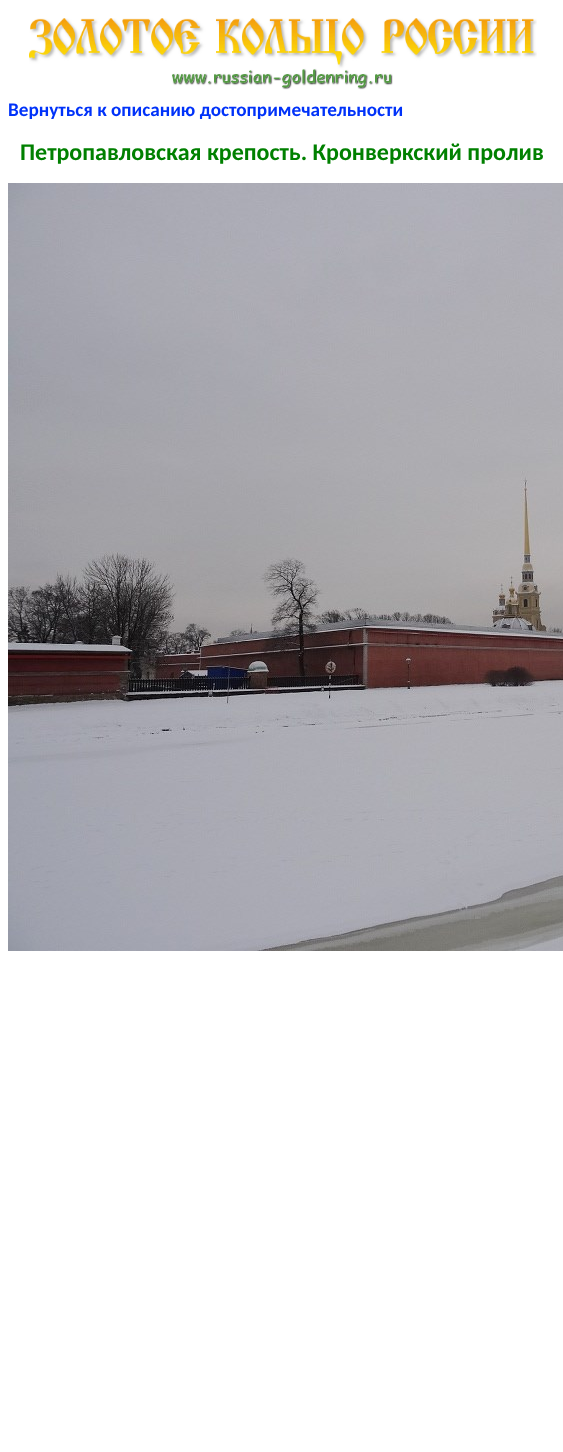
<svg xmlns="http://www.w3.org/2000/svg" width="563" height="1452">
<rect width="100%" height="100%" fill="#fff"/>
<image x="29" y="18" width="508" height="72" href="media/1.png"/>
<text x="8" y="116" style="font-family:Carlito;font-size:19.2px;font-weight:bold;fill:#0032f9">Вернуться к описанию достопримечательности</text>
<text x="20" y="160" style="font-family:Carlito;font-size:24px;font-weight:bold;fill:#008000">Петропавловская крепость. Кронверкский пролив</text>
<image x="8" y="183" width="555" height="768" href="media/2.png"/>
</svg>
